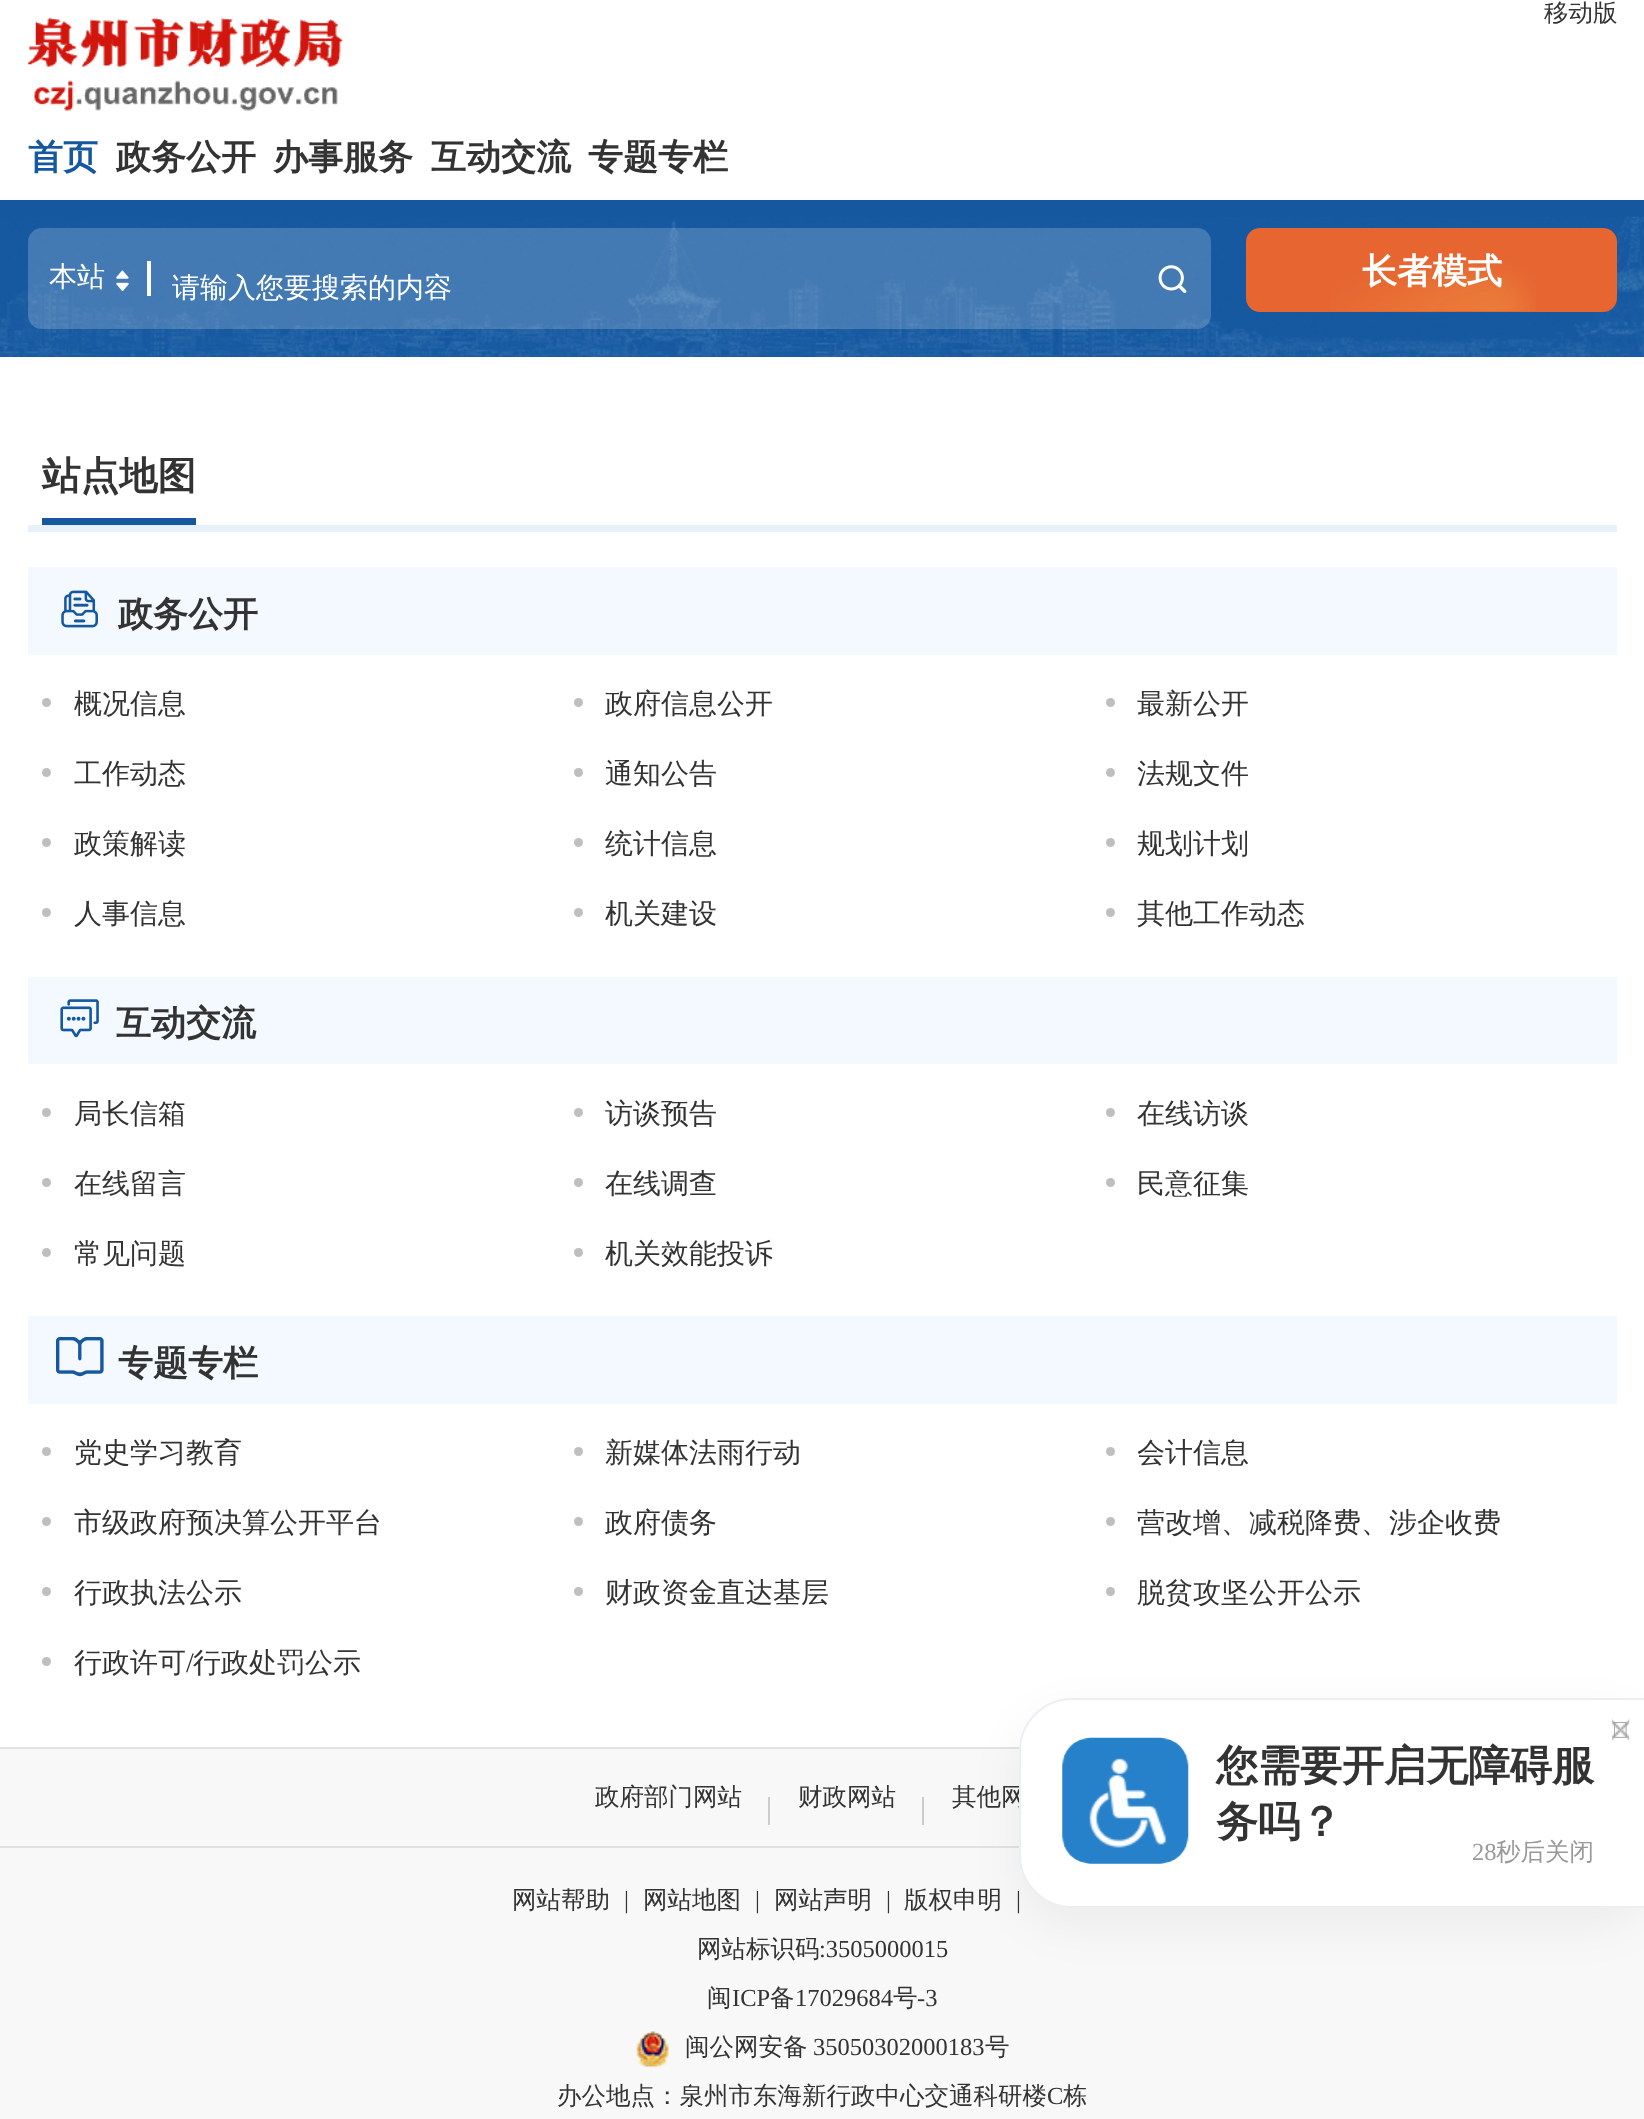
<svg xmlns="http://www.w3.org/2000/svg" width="1644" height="2119">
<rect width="100%" height="100%" fill="#fff"/>
<text x="1544" y="21" style="font-family:WenQuanYi Zen Hei;font-size:24.5px;font-weight:500;fill:#333">移动版</text>
<image x="28" y="17" width="315" height="94" href="media/1.png"/>
<text x="28" y="169" style="font-family:WenQuanYi Zen Hei;font-size:35px;font-weight:bold;fill:#1658a0">首页</text>
<text x="116" y="169" style="font-family:WenQuanYi Zen Hei;font-size:35px;font-weight:bold;fill:#333">政务公开</text>
<text x="273" y="169" style="font-family:WenQuanYi Zen Hei;font-size:35px;font-weight:bold;fill:#333">办事服务</text>
<text x="431" y="169" style="font-family:WenQuanYi Zen Hei;font-size:35px;font-weight:bold;fill:#333">互动交流</text>
<text x="588" y="169" style="font-family:WenQuanYi Zen Hei;font-size:35px;font-weight:bold;fill:#333">专题专栏</text>
<rect y="200" width="1644" height="157" fill="#1658a0"/>
<image x="0" y="216" width="1644" height="141" href="media/2.png"/>
<rect x="28" y="228" width="1183" height="101" rx="14" fill="#ffffff33"/>
<text x="49" y="286" style="font-family:WenQuanYi Zen Hei;font-size:28px;font-weight:500;fill:#fff">本站</text>
<image x="116" y="270" width="13" height="21" href="media/3.png"/>
<rect x="147" y="261" width="4" height="35" fill="#fff"/>
<text x="172" y="297" style="font-family:WenQuanYi Zen Hei;font-size:28px;font-weight:500;fill:#fff">请输入您要搜索的内容</text>
<image x="1158" y="265" width="29" height="28" href="media/4.png"/>
<rect x="1246" y="228" width="371" height="84" rx="14" fill="#e66531"/>
<image x="1331" y="261" width="205" height="50" href="media/5.png"/>
<text x="1362" y="283" style="font-family:WenQuanYi Zen Hei;font-size:35px;font-weight:bold;fill:#fff">长者模式</text>
<text x="42" y="489" style="font-family:WenQuanYi Zen Hei;font-size:38.5px;font-weight:bold;fill:#333">站点地图</text>
<rect x="42" y="518" width="154" height="7" fill="#1658a0"/>
<rect x="28" y="525" width="1589" height="7" fill="#e7f1fc"/>
<rect x="28" y="567" width="1589" height="88" fill="#f3f9ff"/>
<image x="61" y="590" width="37" height="38" href="media/6.png"/>
<text x="118" y="626" style="font-family:WenQuanYi Zen Hei;font-size:35px;font-weight:bold;fill:#333">政务公开</text>
<circle cx="46.5" cy="702.5" r="4.5" fill="#bfbfbf"/>
<text x="74" y="713" style="font-family:WenQuanYi Zen Hei;font-size:28px;font-weight:500;fill:#333">概况信息</text>
<circle cx="578.5" cy="702.5" r="4.5" fill="#bfbfbf"/>
<text x="605" y="713" style="font-family:WenQuanYi Zen Hei;font-size:28px;font-weight:500;fill:#333">政府信息公开</text>
<circle cx="1110.5" cy="702.5" r="4.5" fill="#bfbfbf"/>
<text x="1137" y="713" style="font-family:WenQuanYi Zen Hei;font-size:28px;font-weight:500;fill:#333">最新公开</text>
<circle cx="46.5" cy="772.5" r="4.5" fill="#bfbfbf"/>
<text x="74" y="783" style="font-family:WenQuanYi Zen Hei;font-size:28px;font-weight:500;fill:#333">工作动态</text>
<circle cx="578.5" cy="772.5" r="4.5" fill="#bfbfbf"/>
<text x="605" y="783" style="font-family:WenQuanYi Zen Hei;font-size:28px;font-weight:500;fill:#333">通知公告</text>
<circle cx="1110.5" cy="772.5" r="4.5" fill="#bfbfbf"/>
<text x="1137" y="783" style="font-family:WenQuanYi Zen Hei;font-size:28px;font-weight:500;fill:#333">法规文件</text>
<circle cx="46.5" cy="842.5" r="4.5" fill="#bfbfbf"/>
<text x="74" y="853" style="font-family:WenQuanYi Zen Hei;font-size:28px;font-weight:500;fill:#333">政策解读</text>
<circle cx="578.5" cy="842.5" r="4.5" fill="#bfbfbf"/>
<text x="605" y="853" style="font-family:WenQuanYi Zen Hei;font-size:28px;font-weight:500;fill:#333">统计信息</text>
<circle cx="1110.5" cy="842.5" r="4.5" fill="#bfbfbf"/>
<text x="1137" y="853" style="font-family:WenQuanYi Zen Hei;font-size:28px;font-weight:500;fill:#333">规划计划</text>
<circle cx="46.5" cy="912.5" r="4.5" fill="#bfbfbf"/>
<text x="74" y="923" style="font-family:WenQuanYi Zen Hei;font-size:28px;font-weight:500;fill:#333">人事信息</text>
<circle cx="578.5" cy="912.5" r="4.5" fill="#bfbfbf"/>
<text x="605" y="923" style="font-family:WenQuanYi Zen Hei;font-size:28px;font-weight:500;fill:#333">机关建设</text>
<circle cx="1110.5" cy="912.5" r="4.5" fill="#bfbfbf"/>
<text x="1137" y="923" style="font-family:WenQuanYi Zen Hei;font-size:28px;font-weight:500;fill:#333">其他工作动态</text>
<rect x="28" y="977" width="1589" height="87" fill="#f3f9ff"/>
<image x="60" y="999" width="39" height="39" href="media/7.png"/>
<text x="116" y="1035" style="font-family:WenQuanYi Zen Hei;font-size:35px;font-weight:bold;fill:#333">互动交流</text>
<circle cx="46.5" cy="1112.5" r="4.5" fill="#bfbfbf"/>
<text x="74" y="1123" style="font-family:WenQuanYi Zen Hei;font-size:28px;font-weight:500;fill:#333">局长信箱</text>
<circle cx="578.5" cy="1112.5" r="4.5" fill="#bfbfbf"/>
<text x="605" y="1123" style="font-family:WenQuanYi Zen Hei;font-size:28px;font-weight:500;fill:#333">访谈预告</text>
<circle cx="1110.5" cy="1112.5" r="4.5" fill="#bfbfbf"/>
<text x="1137" y="1123" style="font-family:WenQuanYi Zen Hei;font-size:28px;font-weight:500;fill:#333">在线访谈</text>
<circle cx="46.5" cy="1182.5" r="4.5" fill="#bfbfbf"/>
<text x="74" y="1193" style="font-family:WenQuanYi Zen Hei;font-size:28px;font-weight:500;fill:#333">在线留言</text>
<circle cx="578.5" cy="1182.5" r="4.5" fill="#bfbfbf"/>
<text x="605" y="1193" style="font-family:WenQuanYi Zen Hei;font-size:28px;font-weight:500;fill:#333">在线调查</text>
<circle cx="1110.5" cy="1182.5" r="4.5" fill="#bfbfbf"/>
<text x="1137" y="1193" style="font-family:WenQuanYi Zen Hei;font-size:28px;font-weight:500;fill:#333">民意征集</text>
<circle cx="46.5" cy="1252.5" r="4.5" fill="#bfbfbf"/>
<text x="74" y="1263" style="font-family:WenQuanYi Zen Hei;font-size:28px;font-weight:500;fill:#333">常见问题</text>
<circle cx="578.5" cy="1252.5" r="4.5" fill="#bfbfbf"/>
<text x="605" y="1263" style="font-family:WenQuanYi Zen Hei;font-size:28px;font-weight:500;fill:#333">机关效能投诉</text>
<rect x="28" y="1316" width="1589" height="88" fill="#f3f9ff"/>
<image x="56" y="1337" width="48" height="40" href="media/8.png"/>
<text x="118" y="1375" style="font-family:WenQuanYi Zen Hei;font-size:35px;font-weight:bold;fill:#333">专题专栏</text>
<circle cx="46.5" cy="1451.5" r="4.5" fill="#bfbfbf"/>
<text x="74" y="1462" style="font-family:WenQuanYi Zen Hei;font-size:28px;font-weight:500;fill:#333">党史学习教育</text>
<circle cx="578.5" cy="1451.5" r="4.5" fill="#bfbfbf"/>
<text x="605" y="1462" style="font-family:WenQuanYi Zen Hei;font-size:28px;font-weight:500;fill:#333">新媒体法雨行动</text>
<circle cx="1110.5" cy="1451.5" r="4.5" fill="#bfbfbf"/>
<text x="1137" y="1462" style="font-family:WenQuanYi Zen Hei;font-size:28px;font-weight:500;fill:#333">会计信息</text>
<circle cx="46.5" cy="1521.5" r="4.5" fill="#bfbfbf"/>
<text x="74" y="1532" style="font-family:WenQuanYi Zen Hei;font-size:28px;font-weight:500;fill:#333">市级政府预决算公开平台</text>
<circle cx="578.5" cy="1521.5" r="4.5" fill="#bfbfbf"/>
<text x="605" y="1532" style="font-family:WenQuanYi Zen Hei;font-size:28px;font-weight:500;fill:#333">政府债务</text>
<circle cx="1110.5" cy="1521.5" r="4.5" fill="#bfbfbf"/>
<text x="1137" y="1532" style="font-family:WenQuanYi Zen Hei;font-size:28px;font-weight:500;fill:#333">营改增、减税降费、涉企收费</text>
<circle cx="46.5" cy="1591.5" r="4.5" fill="#bfbfbf"/>
<text x="74" y="1602" style="font-family:WenQuanYi Zen Hei;font-size:28px;font-weight:500;fill:#333">行政执法公示</text>
<circle cx="578.5" cy="1591.5" r="4.5" fill="#bfbfbf"/>
<text x="605" y="1602" style="font-family:WenQuanYi Zen Hei;font-size:28px;font-weight:500;fill:#333">财政资金直达基层</text>
<circle cx="1110.5" cy="1591.5" r="4.5" fill="#bfbfbf"/>
<text x="1137" y="1602" style="font-family:WenQuanYi Zen Hei;font-size:28px;font-weight:500;fill:#333">脱贫攻坚公开公示</text>
<circle cx="46.5" cy="1661.5" r="4.5" fill="#bfbfbf"/>
<text x="74" y="1672" style="font-family:WenQuanYi Zen Hei;font-size:28px;font-weight:500;fill:#333">行政许可</text>
<text x="186" y="1672" style="font-family:Liberation Serif;font-size:28px;fill:#333">/</text>
<text x="193" y="1672" style="font-family:WenQuanYi Zen Hei;font-size:28px;font-weight:500;fill:#333">行政处罚公示</text>
<rect y="1749" width="1644" height="370" fill="#f8f8f8"/>
<rect y="1747" width="1020" height="2" fill="#e2e2e2"/>
<text x="595" y="1805" style="font-family:WenQuanYi Zen Hei;font-size:24.5px;font-weight:500;fill:#333">政府部门网站</text>
<rect x="768" y="1797" width="2" height="28" fill="#ccc"/>
<text x="798" y="1805" style="font-family:WenQuanYi Zen Hei;font-size:24.5px;font-weight:500;fill:#333">财政网站</text>
<rect x="922" y="1797" width="2" height="28" fill="#ccc"/>
<text x="952" y="1805" style="font-family:WenQuanYi Zen Hei;font-size:24.5px;font-weight:500;fill:#333">其他网</text>
<rect y="1846" width="1019" height="2" fill="#e2e2e2"/>
<text x="512" y="1908" style="font-family:WenQuanYi Zen Hei;font-size:24.5px;font-weight:500;fill:#333">网站帮助</text>
<text x="624" y="1908" style="font-family:Liberation Serif;font-size:24.5px;fill:#333">|</text>
<text x="643" y="1908" style="font-family:WenQuanYi Zen Hei;font-size:24.5px;font-weight:500;fill:#333">网站地图</text>
<text x="755" y="1908" style="font-family:Liberation Serif;font-size:24.5px;fill:#333">|</text>
<text x="774" y="1908" style="font-family:WenQuanYi Zen Hei;font-size:24.5px;font-weight:500;fill:#333">网站声明</text>
<text x="886" y="1908" style="font-family:Liberation Serif;font-size:24.5px;fill:#333">|</text>
<text x="904" y="1908" style="font-family:WenQuanYi Zen Hei;font-size:24.5px;font-weight:500;fill:#333">版权申明</text>
<text x="1016" y="1908" style="font-family:Liberation Serif;font-size:24.5px;fill:#333">|</text>
<text x="697" y="1957" style="font-family:WenQuanYi Zen Hei;font-size:24.5px;font-weight:500;fill:#333">网站标识码</text>
<text x="819" y="1957" style="font-family:Liberation Serif;font-size:24.5px;fill:#333">:3505000015</text>
<text x="707" y="2006" style="font-family:WenQuanYi Zen Hei;font-size:24.5px;font-weight:500;fill:#333">闽</text>
<text x="732" y="2006" style="font-family:Liberation Serif;font-size:24.5px;fill:#333">ICP</text>
<text x="770" y="2006" style="font-family:WenQuanYi Zen Hei;font-size:24.5px;font-weight:500;fill:#333">备</text>
<text x="795" y="2006" style="font-family:Liberation Serif;font-size:24.5px;fill:#333">17029684</text>
<text x="893" y="2006" style="font-family:WenQuanYi Zen Hei;font-size:24.5px;font-weight:500;fill:#333">号</text>
<text x="917" y="2006" style="font-family:Liberation Serif;font-size:24.5px;fill:#333">-3</text>
<image x="636" y="2031" width="33" height="36" href="media/9.png"/>
<text x="685" y="2055" style="font-family:WenQuanYi Zen Hei;font-size:24.5px;font-weight:500;fill:#333">闽公网安备</text>
<text x="813" y="2055" style="font-family:Liberation Serif;font-size:24.5px;fill:#333">35050302000183</text>
<text x="985" y="2055" style="font-family:WenQuanYi Zen Hei;font-size:24.5px;font-weight:500;fill:#333">号</text>
<text x="557" y="2104" style="font-family:WenQuanYi Zen Hei;font-size:24.5px;font-weight:500;fill:#333">办公地点：泉州市东海新行政中心交通科研楼</text>
<text x="1047" y="2104" style="font-family:Liberation Serif;font-size:24.5px;fill:#333">C</text>
<text x="1063" y="2104" style="font-family:WenQuanYi Zen Hei;font-size:24.5px;font-weight:500;fill:#333">栋</text>
<rect x="1019" y="1715" width="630" height="210" rx="53" fill="#0404040d" filter="blur(23.5px)"/>
<path d="M1072 1699h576v208h-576c-28.5 0-52-23.5-52-52v-104c0-28.5 23.5-52 52-52z" fill="#fff" stroke="#eceff2" stroke-width="2"/>
<image x="1611" y="1718" width="19" height="23" href="media/10.png"/>
<image x="1614" y="1722" width="13" height="16" href="media/11.png"/>
<image x="1062" y="1737" width="127" height="127" href="media/12.png"/>
<text x="1216" y="1780" style="font-family:WenQuanYi Zen Hei;font-size:42px;font-weight:bold;fill:#333">您需要开启无障碍服</text>
<text x="1216" y="1836" style="font-family:WenQuanYi Zen Hei;font-size:42px;font-weight:bold;fill:#333">务吗？</text>
<text x="1472" y="1860" style="font-family:Liberation Serif;font-size:24.5px;fill:#999">28</text>
<text x="1496" y="1860" style="font-family:WenQuanYi Zen Hei;font-size:24.5px;font-weight:500;fill:#999">秒后关闭</text>
</svg>
